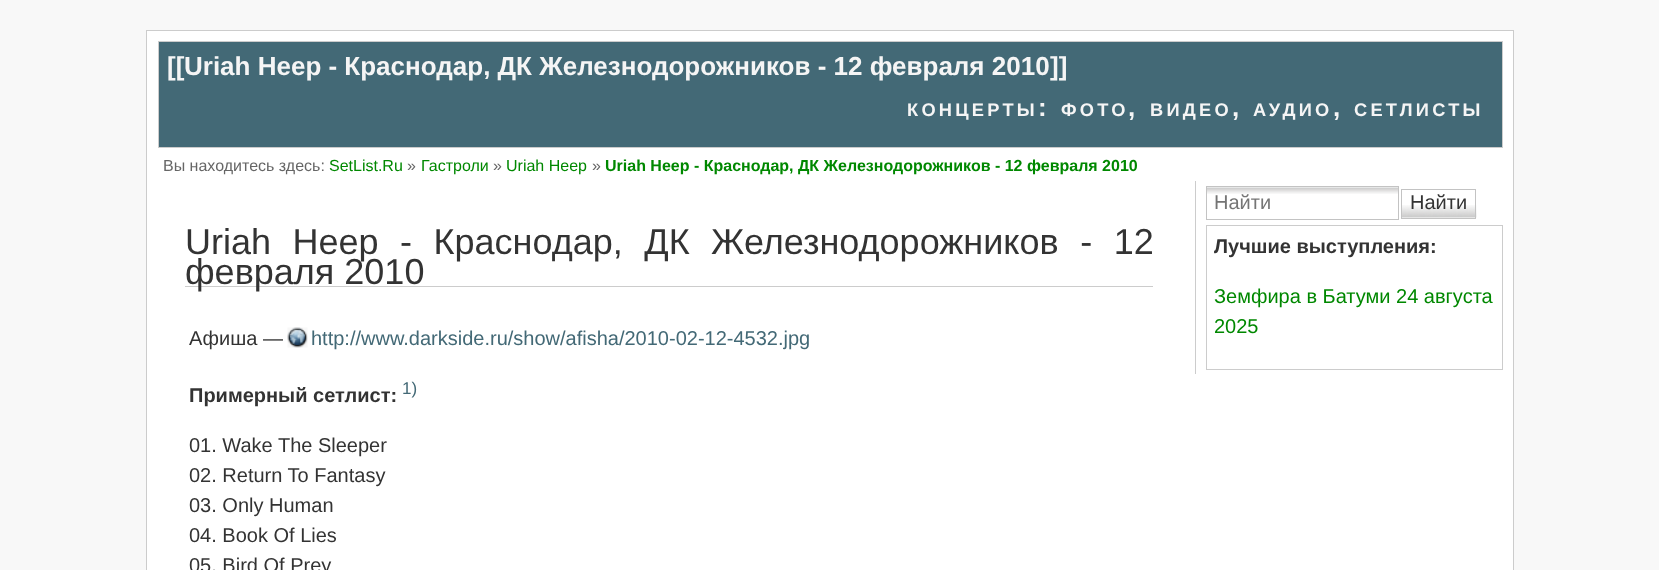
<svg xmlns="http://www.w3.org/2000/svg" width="1659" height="570">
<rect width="100%" height="100%" fill="#f8f8f8"/>
<rect x="146.5" y="30.5" width="1367" height="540" fill="#fff" stroke="#ccc"/>
<rect x="158.5" y="41.5" width="1344" height="106" fill="#436976" stroke="#ccc"/>
<text x="167" y="75" style="font-family:Liberation Sans;font-size:26px;font-weight:bold;fill:#f5f5f5">[[</text>
<text x="184" y="75" style="font-family:Liberation Sans;font-size:26px;font-weight:bold;fill:#f5f5f5">Uriah Heep - Краснодар, ДК Железнодорожников - 12 февраля 2010</text>
<text x="1050" y="75" style="font-family:Liberation Sans;font-size:26px;font-weight:bold;fill:#f5f5f5">]]</text>
<text x="907" y="116" style="font-family:Liberation Sans;font-size:18.25px;font-weight:bold;letter-spacing:3.25px;fill:#f5f5f5">КОНЦЕРТЫ</text>
<text x="1038" y="116" style="font-family:Liberation Sans;font-size:26px;font-weight:bold;letter-spacing:3.25px;fill:#f5f5f5">:</text>
<text x="1061" y="116" style="font-family:Liberation Sans;font-size:18.25px;font-weight:bold;letter-spacing:3.25px;fill:#f5f5f5">ФОТО</text>
<text x="1128" y="116" style="font-family:Liberation Sans;font-size:26px;font-weight:bold;letter-spacing:3.25px;fill:#f5f5f5">,</text>
<text x="1150" y="116" style="font-family:Liberation Sans;font-size:18.25px;font-weight:bold;letter-spacing:3.25px;fill:#f5f5f5">ВИДЕО</text>
<text x="1232" y="116" style="font-family:Liberation Sans;font-size:26px;font-weight:bold;letter-spacing:3.25px;fill:#f5f5f5">,</text>
<text x="1253" y="116" style="font-family:Liberation Sans;font-size:18.25px;font-weight:bold;letter-spacing:3.25px;fill:#f5f5f5">АУДИО</text>
<text x="1333" y="116" style="font-family:Liberation Sans;font-size:26px;font-weight:bold;letter-spacing:3.25px;fill:#f5f5f5">,</text>
<text x="1354" y="116" style="font-family:Liberation Sans;font-size:18.25px;font-weight:bold;letter-spacing:3.25px;fill:#f5f5f5">СЕТЛИСТЫ</text>
<text x="163" y="171" style="font-family:Liberation Sans;font-size:16px;fill:#666">Вы находитесь здесь:</text>
<text x="329" y="171" style="font-family:Liberation Sans;font-size:16px;fill:#080">SetList.Ru</text>
<text x="407" y="171" style="font-family:Liberation Sans;font-size:16px;fill:#666">»</text>
<text x="421" y="171" style="font-family:Liberation Sans;font-size:16px;fill:#080">Гастроли</text>
<text x="493" y="171" style="font-family:Liberation Sans;font-size:16px;fill:#666">»</text>
<text x="506" y="171" style="font-family:Liberation Sans;font-size:16px;fill:#080">Uriah Heep</text>
<text x="592" y="171" style="font-family:Liberation Sans;font-size:16px;fill:#666">»</text>
<text x="605" y="171" style="font-family:Liberation Sans;font-size:16px;font-weight:bold;fill:#080">Uriah Heep - Краснодар, ДК Железнодорожников - 12 февраля 2010</text>
<rect x="185" y="286" width="968" height="1" fill="#ccc"/>
<text x="185" y="254" word-spacing="11.5" style="font-family:Liberation Sans;font-size:36px;fill:#333">Uriah Heep - Краснодар, ДК Железнодорожников - 12</text>
<text x="185" y="284" style="font-family:Liberation Sans;font-size:36px;fill:#333">февраля 2010</text>
<text x="189" y="345" style="font-family:Liberation Sans;font-size:20px;fill:#333">Афиша —</text>
<image x="287" y="327" width="21" height="21" href="media/1.png"/>
<text x="311" y="345" style="font-family:Liberation Sans;font-size:20px;fill:#436976">http://www.darkside.ru/show/afisha/2010-02-12-4532.jpg</text>
<text x="189" y="402" style="font-family:Liberation Sans;font-size:20px;font-weight:bold;fill:#333">Примерный сетлист:</text>
<text x="402" y="394" style="font-family:Liberation Sans;font-size:17px;fill:#436976">1)</text>
<text x="189" y="452" style="font-family:Liberation Sans;font-size:20px;fill:#333">01. Wake The Sleeper</text>
<text x="189" y="482" style="font-family:Liberation Sans;font-size:20px;fill:#333">02. Return To Fantasy</text>
<text x="189" y="512" style="font-family:Liberation Sans;font-size:20px;fill:#333">03. Only Human</text>
<text x="189" y="542" style="font-family:Liberation Sans;font-size:20px;fill:#333">04. Book Of Lies</text>
<text x="189" y="572" style="font-family:Liberation Sans;font-size:20px;fill:#333">05. Bird Of Prey</text>
<rect x="1195" y="181" width="1" height="193" fill="#ccc"/>
<image x="1207" y="187" width="191" height="7" href="media/2.png"/>
<rect x="1206.5" y="186.5" width="192" height="33" fill="none" stroke="#c3c3c3"/>
<text x="1214" y="209" style="font-family:Liberation Sans;font-size:20px;fill:#757575">Найти</text>
<image x="1402" y="205" width="75" height="13" href="media/3.png"/>
<rect x="1401.5" y="189.5" width="74" height="29" fill="none" stroke="#c3c3c3"/>
<text x="1410" y="209" style="font-family:Liberation Sans;font-size:20px;fill:#333">Найти</text>
<rect x="1206.5" y="225.5" width="296" height="144" fill="none" stroke="#ccc"/>
<text x="1214" y="253" style="font-family:Liberation Sans;font-size:20px;font-weight:bold;fill:#333">Лучшие выступления:</text>
<text x="1214" y="303" style="font-family:Liberation Sans;font-size:20px;fill:#080">Земфира в Батуми 24 августа</text>
<text x="1214" y="333" style="font-family:Liberation Sans;font-size:20px;fill:#080">2025</text>
</svg>
